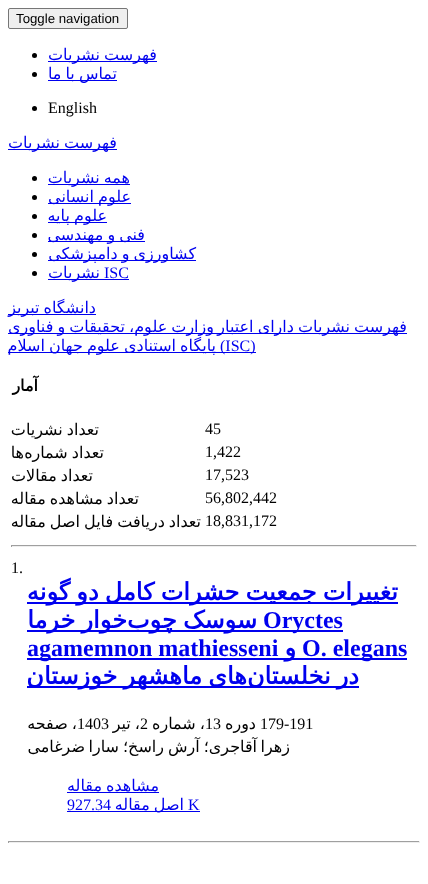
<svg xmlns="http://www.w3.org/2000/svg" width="428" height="884">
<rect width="100%" height="100%" fill="#fff"/>
<rect x="8.5" y="8.5" width="119" height="20" rx="1.5" fill="#efefef" stroke="#767676"/>
<text x="16" y="23" style="font-family:Liberation Sans;font-size:13.25px;fill:#000">Toggle navigation</text>
<rect x="48" y="61" width="109" height="1" fill="#00e"/>
<text x="157" y="60" word-spacing="-1" style="font-family:DejaVu Sans;font-size:16px;direction:rtl;fill:#00e">فهرست نشریات</text>
<circle cx="34.5" cy="55.5" r="2.5" fill="#000"/>
<rect x="48" y="80" width="69" height="1" fill="#00e"/>
<text x="117" y="79" word-spacing="-1" style="font-family:DejaVu Sans;font-size:16px;direction:rtl;fill:#00e">تماس با ما</text>
<circle cx="34.5" cy="74.5" r="2.5" fill="#000"/>
<text x="48" y="113" style="font-family:Liberation Serif;font-size:16px;fill:#000">English</text>
<circle cx="34.5" cy="108.5" r="2.5" fill="#000"/>
<rect x="8" y="149" width="109" height="1" fill="#00e"/>
<text x="117" y="148" word-spacing="-1" style="font-family:DejaVu Sans;font-size:16px;direction:rtl;fill:#00e">فهرست نشریات</text>
<rect x="48" y="184" width="82" height="1" fill="#00e"/>
<text x="130" y="183" word-spacing="-1" style="font-family:DejaVu Sans;font-size:16px;direction:rtl;fill:#00e">همه نشریات</text>
<circle cx="34.5" cy="178.5" r="2.5" fill="#000"/>
<rect x="48" y="203" width="83" height="1" fill="#00e"/>
<text x="131" y="202" word-spacing="-1" style="font-family:DejaVu Sans;font-size:16px;direction:rtl;fill:#00e">علوم انسانی</text>
<circle cx="34.5" cy="197.5" r="2.5" fill="#000"/>
<rect x="48" y="222" width="59" height="1" fill="#00e"/>
<text x="107" y="221" word-spacing="-1" style="font-family:DejaVu Sans;font-size:16px;direction:rtl;fill:#00e">علوم پایه</text>
<circle cx="34.5" cy="216.5" r="2.5" fill="#000"/>
<rect x="48" y="241" width="97" height="1" fill="#00e"/>
<text x="145" y="240" word-spacing="-1" style="font-family:DejaVu Sans;font-size:16px;direction:rtl;fill:#00e">فنی و مهندسی</text>
<circle cx="34.5" cy="235.5" r="2.5" fill="#000"/>
<rect x="48" y="260" width="148" height="1" fill="#00e"/>
<text x="196" y="259" word-spacing="-1" style="font-family:DejaVu Sans;font-size:16px;direction:rtl;fill:#00e">کشاورزی و دامپزشکی</text>
<circle cx="34.5" cy="254.5" r="2.5" fill="#000"/>
<text x="104" y="278" style="font-family:Liberation Serif;font-size:16px;fill:#00e">ISC</text>
<rect x="48" y="279" width="81" height="1" fill="#00e"/>
<text x="100" y="278" style="font-family:DejaVu Sans;font-size:16px;direction:rtl;fill:#00e">نشریات</text>
<circle cx="34.5" cy="273.5" r="2.5" fill="#000"/>
<rect x="8" y="314" width="88" height="1" fill="#00e"/>
<text x="96" y="313" word-spacing="-1" style="font-family:DejaVu Sans;font-size:16px;direction:rtl;fill:#00e">دانشگاه تبریز</text>
<rect x="8" y="333" width="399" height="1" fill="#00e"/>
<text x="407" y="332" word-spacing="-1" style="font-family:DejaVu Sans;font-size:16px;direction:rtl;fill:#00e">فهرست نشریات دارای اعتبار</text>
<text x="214" y="332" word-spacing="-1" style="font-family:DejaVu Sans;font-size:16px;direction:rtl;fill:#00e">وزارت علوم، تحقیقات و فناوری</text>
<rect x="216" y="352" width="40" height="1" fill="#00e"/>
<text x="220" y="351" style="font-family:Liberation Serif;font-size:16px;fill:#00e">(ISC)</text>
<rect x="8" y="352" width="208" height="1" fill="#00e"/>
<text x="216" y="351" word-spacing="-1" style="font-family:DejaVu Sans;font-size:16px;direction:rtl;fill:#00e">پایگاه استنادی علوم جهان اسلام</text>
<text x="38" y="391" style="font-family:DejaVu Sans;font-size:16px;font-weight:bold;direction:rtl;fill:#000">آمار</text>
<text x="205" y="434" style="font-family:Liberation Serif;font-size:16px;fill:#000">45</text>
<text x="99" y="435" word-spacing="-1" style="font-family:DejaVu Sans;font-size:16px;direction:rtl;fill:#000">تعداد نشریات</text>
<text x="205" y="457" style="font-family:Liberation Serif;font-size:16px;fill:#000">1,422</text>
<text x="104" y="458" word-spacing="-1" style="font-family:DejaVu Sans;font-size:16px;direction:rtl;fill:#000">تعداد شماره</text>
<text x="24" y="458" style="font-family:DejaVu Sans;font-size:16px;direction:rtl;fill:#000">ها</text>
<text x="205" y="480" style="font-family:Liberation Serif;font-size:16px;fill:#000">17,523</text>
<text x="93" y="481" word-spacing="-1" style="font-family:DejaVu Sans;font-size:16px;direction:rtl;fill:#000">تعداد مقالات</text>
<text x="205" y="503" style="font-family:Liberation Serif;font-size:16px;fill:#000">56,802,442</text>
<text x="139" y="504" word-spacing="-1" style="font-family:DejaVu Sans;font-size:16px;direction:rtl;fill:#000">تعداد مشاهده مقاله</text>
<text x="205" y="526" style="font-family:Liberation Serif;font-size:16px;fill:#000">18,831,172</text>
<text x="201" y="527" word-spacing="-1" style="font-family:DejaVu Sans;font-size:16px;direction:rtl;fill:#000">تعداد دریافت فایل اصل مقاله</text>
<rect x="11" y="545" width="406" height="1" fill="#9f9f9f"/>
<rect x="416" y="545" width="1" height="2" fill="#eee"/>
<rect x="11" y="546" width="406" height="1" fill="#eee"/>
<rect x="11" y="545" width="1" height="2" fill="#9f9f9f"/>
<text x="11" y="573" style="font-family:Liberation Serif;font-size:16px;fill:#000">1.</text>
<rect x="27" y="602" width="371" height="2" fill="#00e"/>
<text x="398" y="600" word-spacing="-1.5" style="font-family:DejaVu Sans;font-size:24px;font-weight:bold;direction:rtl;fill:#00e">تغییرات جمعیت حشرات کامل دو گونه</text>
<rect x="27" y="630" width="316" height="2" fill="#00e"/>
<text x="263" y="628" style="font-family:Liberation Serif;font-size:24px;font-weight:bold;fill:#00e">Oryctes</text>
<text x="257" y="628" word-spacing="-1.5" style="font-family:DejaVu Sans;font-size:24px;font-weight:bold;direction:rtl;fill:#00e">سوسک چوب</text>
<text x="127" y="628" word-spacing="-1.5" style="font-family:DejaVu Sans;font-size:24px;font-weight:bold;direction:rtl;fill:#00e">خوار خرما</text>
<rect x="27" y="658" width="380" height="2" fill="#00e"/>
<text x="302" y="656" style="font-family:Liberation Serif;font-size:24px;font-weight:bold;fill:#00e">O. elegans</text>
<text x="296" y="656" style="font-family:DejaVu Sans;font-size:24px;font-weight:bold;direction:rtl;fill:#00e">و</text>
<text x="27" y="656" style="font-family:Liberation Serif;font-size:24px;font-weight:bold;fill:#00e">agamemnon mathiesseni</text>
<rect x="27" y="686" width="332" height="2" fill="#00e"/>
<text x="247" y="684" word-spacing="-1.5" style="font-family:DejaVu Sans;font-size:24px;font-weight:bold;direction:rtl;fill:#00e">های ماهشهر خوزستان</text>
<text x="359" y="684" word-spacing="-1.5" style="font-family:DejaVu Sans;font-size:24px;font-weight:bold;direction:rtl;fill:#00e">در نخلستان</text>
<text x="260" y="729" style="font-family:Liberation Serif;font-size:16px;fill:#000">179-191</text>
<text x="256" y="729" style="font-family:DejaVu Sans;font-size:16px;direction:rtl;fill:#000">دوره</text>
<text x="205" y="729" style="font-family:Liberation Serif;font-size:16px;fill:#000">13</text>
<text x="205" y="729" word-spacing="-1" style="font-family:DejaVu Sans;font-size:16px;direction:rtl;fill:#000">، شماره</text>
<text x="140" y="729" style="font-family:Liberation Serif;font-size:16px;fill:#000">2</text>
<text x="140" y="729" word-spacing="-1" style="font-family:DejaVu Sans;font-size:16px;direction:rtl;fill:#000">، تیر</text>
<text x="77" y="729" style="font-family:Liberation Serif;font-size:16px;fill:#000">1403</text>
<text x="77" y="729" word-spacing="-1" style="font-family:DejaVu Sans;font-size:16px;direction:rtl;fill:#000">، صفحه</text>
<text x="290" y="752" style="font-family:DejaVu Sans;font-size:16px;direction:rtl;fill:#000">زهرا</text>
<text x="257" y="752" word-spacing="-1" style="font-family:DejaVu Sans;font-size:16px;direction:rtl;fill:#000">آقاجری؛ آرش</text>
<text x="164" y="752" word-spacing="-1" style="font-family:DejaVu Sans;font-size:16px;direction:rtl;fill:#000">راسخ؛ سارا</text>
<text x="85" y="752" style="font-family:DejaVu Sans;font-size:16px;direction:rtl;fill:#000">ضرغامی</text>
<text x="159" y="791" word-spacing="-1" style="font-family:DejaVu Sans;font-size:16px;direction:rtl;fill:#00e">مشاهده مقاله</text>
<rect x="67" y="792" width="92" height="1" fill="#00e"/>
<text x="188" y="810" style="font-family:Liberation Serif;font-size:16px;fill:#00e">K</text>
<rect x="67" y="811" width="133" height="1" fill="#00e"/>
<text x="184" y="810" word-spacing="-1" style="font-family:DejaVu Sans;font-size:16px;direction:rtl;fill:#00e">اصل مقاله</text>
<text x="67" y="810" style="font-family:Liberation Serif;font-size:16px;fill:#00e">927.34</text>
<rect x="8" y="841" width="412" height="1" fill="#9f9f9f"/>
<rect x="419" y="841" width="1" height="2" fill="#eee"/>
<rect x="8" y="842" width="412" height="1" fill="#eee"/>
<rect x="8" y="841" width="1" height="2" fill="#9f9f9f"/>
</svg>
